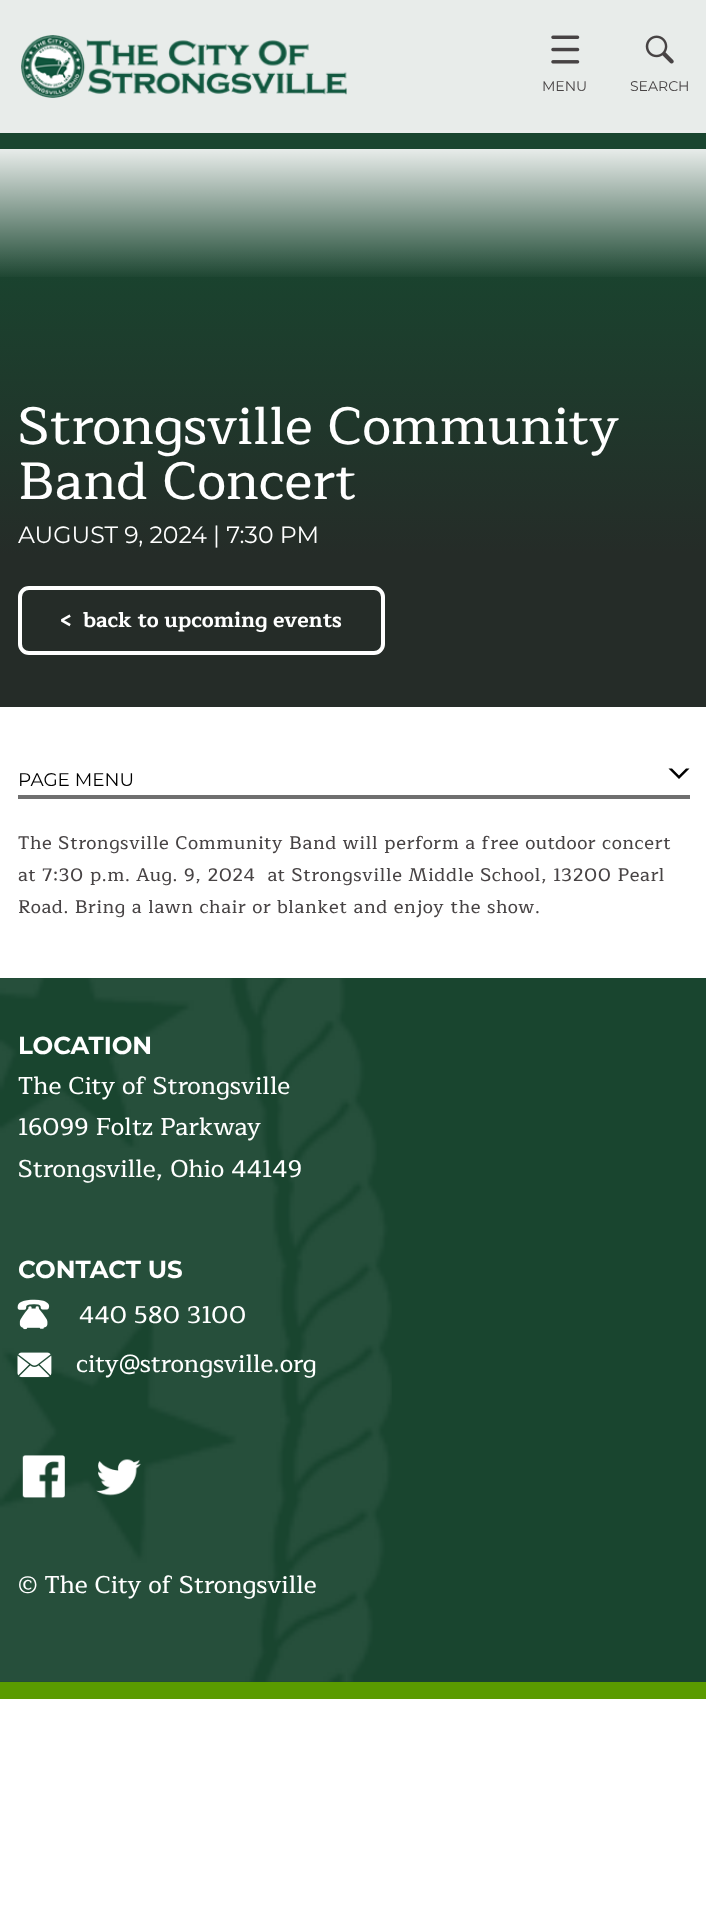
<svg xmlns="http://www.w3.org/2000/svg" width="706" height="1915">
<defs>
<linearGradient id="g1" gradientUnits="userSpaceOnUse" x1="353" y1="212" x2="354" y2="707"><stop offset="0.07" stop-color="#19452f"/><stop offset="0.69" stop-color="#252c28"/></linearGradient>
<linearGradient id="g2" gradientUnits="userSpaceOnUse" x1="354" y1="149" x2="354" y2="280"><stop offset="0" stop-color="#fff" stop-opacity="0.9"/><stop offset="1" stop-color="#fff" stop-opacity="0"/></linearGradient>
</defs>
<rect width="100%" height="100%" fill="#fff"/>
<rect width="706" height="133" fill="#e8ecea"/>
<image x="21" y="35" width="326" height="63" href="media/1.png"/>
<image x="551" y="35" width="29" height="29" href="media/2.png"/>
<text x="542" y="91" style="font-family:Montserrat;font-size:14px;fill:#474344">MENU</text>
<image x="645" y="35" width="29" height="29" href="media/3.png"/>
<text x="630" y="91" style="font-family:Montserrat;font-size:14px;fill:#474344">SEARCH</text>
<rect y="133" width="706" height="79" fill="#19452f"/>
<rect y="212" width="706" height="495" fill="url(#g1)"/>
<rect y="149" width="706" height="128" fill="url(#g2)"/>
<text x="18" y="444" style="font-family:Maitree;font-size:52.5px;font-weight:500;fill:#fff">Strongsville Community</text>
<text x="18" y="499" style="font-family:Maitree;font-size:52.5px;font-weight:500;fill:#fff">Band Concert</text>
<text x="18" y="543" style="font-family:Montserrat;font-size:23.6px;fill:#fff">AUGUST 9, 2024 | 7:30 PM</text>
<rect x="20" y="588" width="363" height="65" rx="9" fill="none" stroke="#fff" stroke-width="4"/>
<text x="60" y="627" style="font-family:Maitree;font-size:21px;font-weight:bold;fill:#fff">&lt;</text>
<text x="83" y="627" style="font-family:Maitree;font-size:21px;font-weight:bold;fill:#fff">back to upcoming events</text>
<text x="18" y="786" style="font-family:Montserrat;font-size:18.4px;fill:#000">PAGE MENU</text>
<path d="M679 775.5l-7-7h-3.5l10.5 10.5l10.5-10.5h-3.5z" fill="#000"/>
<rect x="18" y="795" width="672" height="4" fill="#6f6f6f"/>
<text x="18" y="849" style="font-family:Maitree;font-size:18.4px;font-weight:500;letter-spacing:0.65px;fill:#474344">The Strongsville Community Band will perform a free outdoor concert</text>
<text x="18" y="881" style="font-family:Maitree;font-size:18.4px;font-weight:500;letter-spacing:0.65px;fill:#474344" xml:space="preserve">at 7:30 p.m. Aug. 9, 2024  at Strongsville Middle School, 13200 Pearl</text>
<text x="18" y="913" style="font-family:Maitree;font-size:18.4px;font-weight:500;letter-spacing:0.65px;fill:#474344">Road. Bring a lawn chair or blanket and enjoy the show.</text>
<rect y="978" width="706" height="704" fill="#19452f"/>
<rect y="1682" width="706" height="17" fill="#5a9b00"/>
<image x="0" y="978" width="392" height="704" href="media/4.png"/>
<text x="18" y="1054" style="font-family:Montserrat;font-size:24.5px;font-weight:bold;fill:#fff">LOCATION</text>
<text x="18" y="1094" style="font-family:Maitree;font-size:24.5px;font-weight:500;fill:#fff">The City of Strongsville</text>
<text x="18" y="1135" style="font-family:Maitree;font-size:24.5px;font-weight:500;fill:#fff">16099 Foltz Parkway</text>
<text x="18" y="1177" style="font-family:Maitree;font-size:24.5px;font-weight:500;fill:#fff">Strongsville, Ohio 44149</text>
<text x="18" y="1278" style="font-family:Montserrat;font-size:24.5px;font-weight:bold;fill:#fff">CONTACT US</text>
<image x="17" y="1299" width="33" height="31" href="media/5.png"/>
<text x="79" y="1323" style="font-family:Maitree;font-size:24.5px;font-weight:500;fill:#fff">440 580 3100</text>
<image x="17" y="1352" width="35" height="26" href="media/6.png"/>
<text x="76" y="1372" style="font-family:Maitree;font-size:24.5px;font-weight:500;fill:#fff">city@strongsville.org</text>
<image x="22" y="1455" width="43" height="43" href="media/7.png"/>
<image x="96" y="1459" width="45" height="37" href="media/8.png"/>
<text x="18" y="1593" style="font-family:Maitree;font-size:24.5px;font-weight:500;fill:#fff">© The City of Strongsville</text>
</svg>
